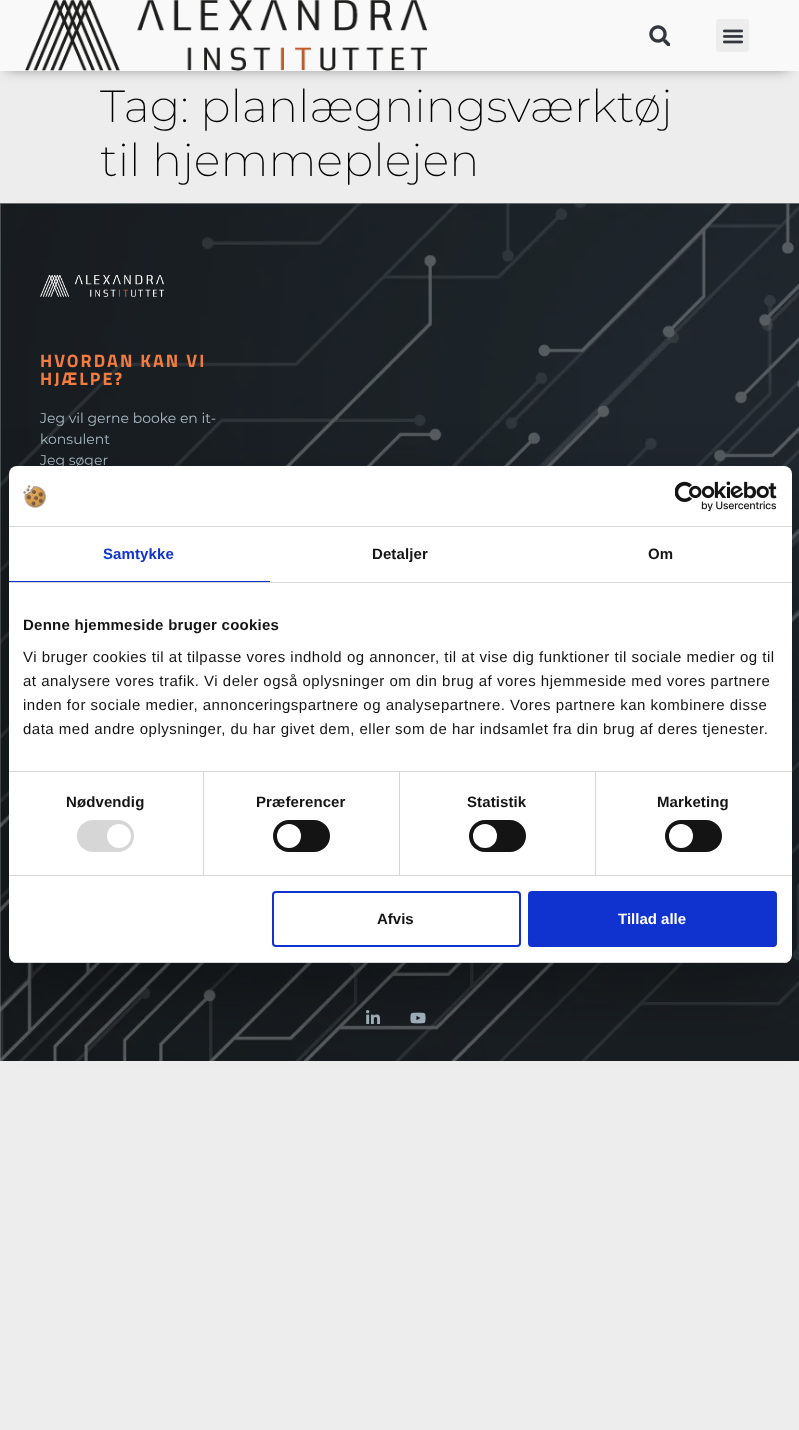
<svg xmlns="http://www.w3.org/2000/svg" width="799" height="1430">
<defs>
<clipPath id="clip1"><rect x="9" y="466" width="783" height="497" rx="8"/></clipPath>
</defs>
<rect width="100%" height="100%" fill="#ededed"/>
<rect x="7" y="16" width="781" height="53" fill="#00000075" filter="blur(6.5px)"/>
<rect width="799" height="71" fill="#f9f9f9"/>
<image x="25" y="0" width="402" height="71" href="media/1.png"/>
<image x="649" y="25" width="21" height="21" href="media/2.png"/>
<rect x="716" y="19" width="33" height="33" rx="3" fill="#ededed"/>
<image x="722" y="29" width="22" height="15" href="media/3.png"/>
<text x="100" y="122" style="font-family:Montserrat;font-size:45px;font-weight:200;fill:#000">Tag: planlægningsværktøj</text>
<text x="100" y="176" style="font-family:Montserrat;font-size:45px;font-weight:200;fill:#000">til hjemmeplejen</text>
<rect y="203" width="799" height="858" fill="#242b31"/>
<image x="0" y="203" width="799" height="858" href="media/4.png"/>
<image x="40" y="275" width="124" height="22" href="media/5.png"/>
<text x="40" y="367" style="font-family:Titillium Web;font-size:18px;font-weight:bold;letter-spacing:2px;fill:#f27c40">HVORDAN KAN VI</text>
<text x="40" y="385" style="font-family:Titillium Web;font-size:18px;font-weight:bold;letter-spacing:2px;fill:#f27c40">HJÆLPE?</text>
<text x="40" y="423" style="font-family:Montserrat;font-size:14px;fill:#aabbc4">Jeg vil gerne booke en it-</text>
<text x="40" y="444" style="font-family:Montserrat;font-size:14px;fill:#aabbc4">konsulent</text>
<text x="40" y="465" style="font-family:Montserrat;font-size:14px;fill:#aabbc4">Jeg søger</text>
<image x="366" y="1010" width="14" height="14" href="media/6.png"/>
<image x="410" y="1012" width="16" height="12" href="media/7.png"/>
<rect x="9" y="498" width="783" height="497" rx="8" fill="#0000004d" filter="blur(34px)"/>
<rect x="9" y="466" width="783" height="497" rx="8" fill="#fff"/>
<rect x="9" y="526" width="783" height="1" fill="#d6d6d6"/>
<image x="23" y="485" width="23" height="23" href="media/8.png"/>
<image x="675" y="481" width="102" height="30" href="media/9.png"/>
<rect x="9" y="582" width="783" height="1" fill="#d6d6d6"/>
<rect x="9" y="581" width="261" height="1" fill="#1032cf"/>
<text x="103" y="559" style="font-family:Liberation Sans;font-size:15px;font-weight:bold;letter-spacing:0.1px;fill:#1032cf">Samtykke</text>
<text x="372" y="559" style="font-family:Liberation Sans;font-size:15px;font-weight:bold;letter-spacing:0.1px;fill:#141414">Detaljer</text>
<text x="648" y="559" style="font-family:Liberation Sans;font-size:15px;font-weight:bold;letter-spacing:0.1px;fill:#141414">Om</text>
<rect x="9" y="771" width="783" height="1" fill="#d6d6d6"/>
<text x="23" y="630" style="font-family:Liberation Sans;font-size:15px;font-weight:bold;letter-spacing:0.25px;fill:#141414">Denne hjemmeside bruger cookies</text>
<text x="23" y="662" style="font-family:Liberation Sans;font-size:15px;letter-spacing:0.5px;fill:#141414">Vi bruger cookies til at tilpasse vores indhold og annoncer, til at vise dig funktioner til sociale medier og til</text>
<text x="23" y="686" style="font-family:Liberation Sans;font-size:15px;letter-spacing:0.5px;fill:#141414">at analysere vores trafik. Vi deler også oplysninger om din brug af vores hjemmeside med vores partnere</text>
<text x="23" y="710" style="font-family:Liberation Sans;font-size:15px;letter-spacing:0.5px;fill:#141414">inden for sociale medier, annonceringspartnere og analysepartnere. Vores partnere kan kombinere disse</text>
<text x="23" y="734" style="font-family:Liberation Sans;font-size:15px;letter-spacing:0.5px;fill:#141414">data med andre oplysninger, du har givet dem, eller som de har indsamlet fra din brug af deres tjenester.</text>
<rect x="9" y="875" width="783" height="1" fill="#d6d6d6"/>
<rect x="203" y="772" width="1" height="103" fill="#d6d6d6"/>
<text x="66" y="807" style="font-family:Liberation Sans;font-size:15px;font-weight:bold;letter-spacing:0.1px;fill:#141414">Nødvendig</text>
<rect x="77" y="820" width="57" height="32" rx="16" fill="#d6d6d6"/>
<circle cx="119" cy="836" r="12" fill="#fff"/>
<rect x="399" y="772" width="1" height="103" fill="#d6d6d6"/>
<text x="256" y="807" style="font-family:Liberation Sans;font-size:15px;font-weight:bold;letter-spacing:0.1px;fill:#141414">Præferencer</text>
<rect x="273" y="820" width="57" height="32" rx="16" fill="#141414"/>
<circle cx="289" cy="836" r="12" fill="#fff"/>
<rect x="595" y="772" width="1" height="103" fill="#d6d6d6"/>
<text x="467" y="807" style="font-family:Liberation Sans;font-size:15px;font-weight:bold;letter-spacing:0.1px;fill:#141414">Statistik</text>
<rect x="469" y="820" width="57" height="32" rx="16" fill="#141414"/>
<circle cx="485" cy="836" r="12" fill="#fff"/>
<text x="657" y="807" style="font-family:Liberation Sans;font-size:15px;font-weight:bold;letter-spacing:0.1px;fill:#141414">Marketing</text>
<rect x="665" y="820" width="57" height="32" rx="16" fill="#141414"/>
<circle cx="681" cy="836" r="12" fill="#fff"/>
<g clip-path="url(#clip1)">
<rect x="9" y="962" width="783" height="1" fill="#d6d6d6"/>
</g>
<rect x="273" y="892" width="247" height="54" rx="3" fill="none" stroke="#1032cf" stroke-width="2"/>
<text x="377" y="924" style="font-family:Liberation Sans;font-size:15px;font-weight:bold;fill:#141414">Afvis</text>
<rect x="529" y="892" width="247" height="54" rx="3" fill="#1032cf" stroke="#1032cf" stroke-width="2"/>
<text x="618" y="924" style="font-family:Liberation Sans;font-size:15px;font-weight:bold;fill:#fff">Tillad alle</text>
</svg>
